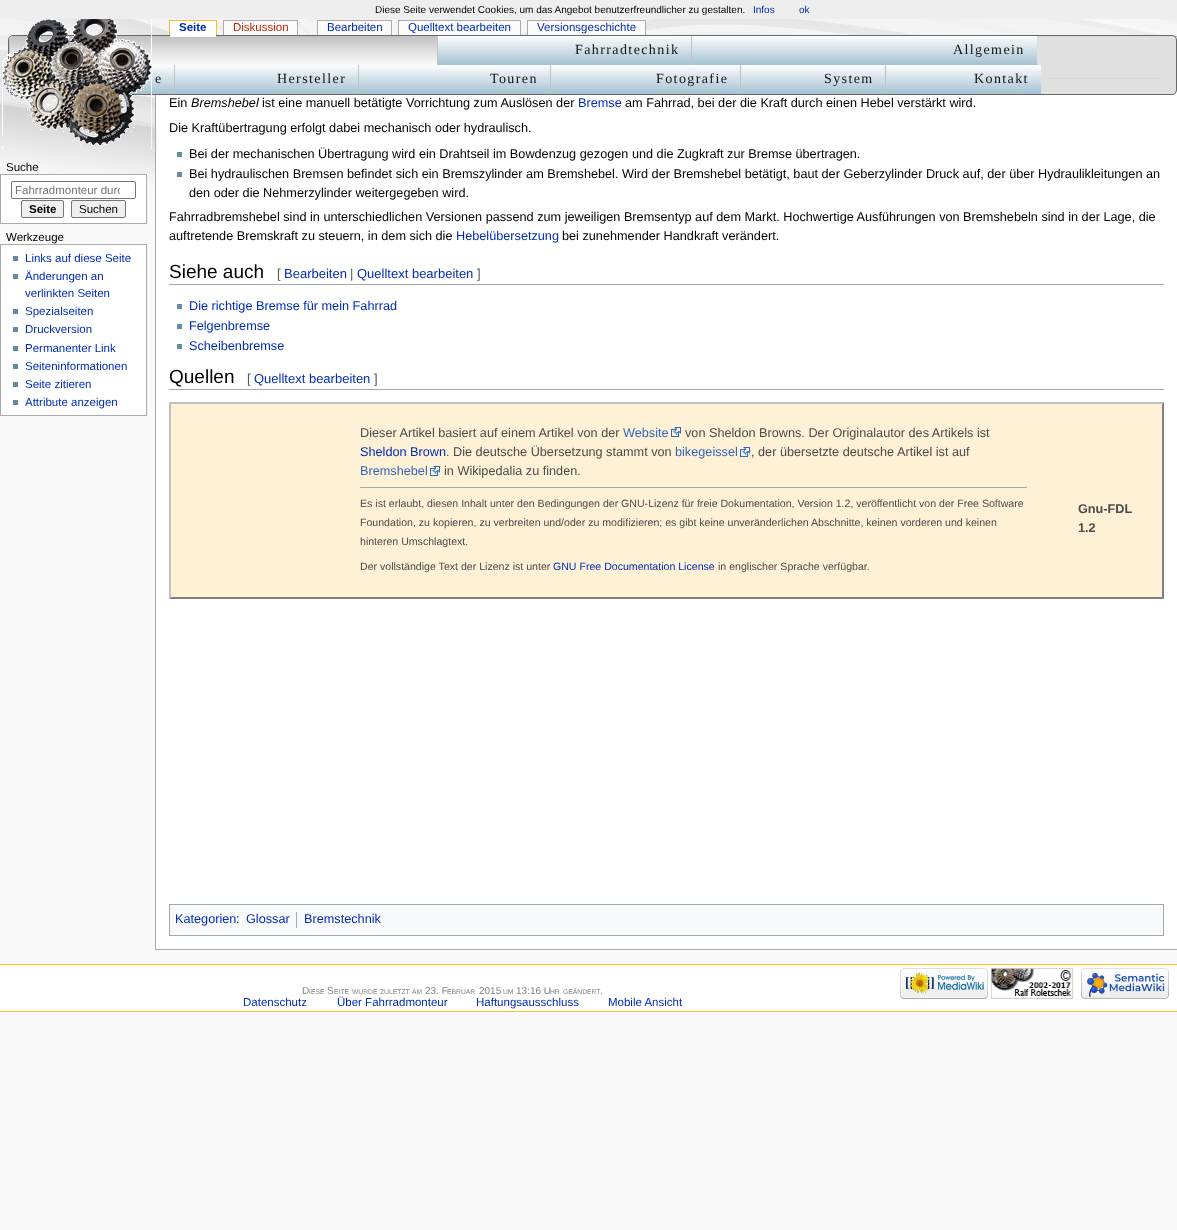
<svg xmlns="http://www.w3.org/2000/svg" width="1177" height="1230">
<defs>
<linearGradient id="g1" gradientUnits="userSpaceOnUse" x1="224" y1="36" x2="224" y2="65"><stop offset="0" stop-color="#c1c1c1" stop-opacity="0.93"/><stop offset="1" stop-color="#fff" stop-opacity="0.93"/></linearGradient>
<linearGradient id="g2" gradientUnits="userSpaceOnUse" x1="92" y1="65" x2="92" y2="94"><stop offset="0" stop-color="#fff" stop-opacity="0.93"/><stop offset="1" stop-color="#9fbfd2" stop-opacity="0.93"/></linearGradient>
<clipPath id="clip1"><rect x="15" y="184" width="105" height="12"/></clipPath>
<linearGradient id="g3" gradientUnits="userSpaceOnUse" x1="565" y1="36" x2="565" y2="65"><stop offset="0" stop-color="#fff" stop-opacity="0.93"/><stop offset="1" stop-color="#9fbfd2" stop-opacity="0.93"/></linearGradient>
<linearGradient id="g4" gradientUnits="userSpaceOnUse" x1="865" y1="36" x2="865" y2="65"><stop offset="0" stop-color="#fff" stop-opacity="0.93"/><stop offset="1" stop-color="#9fbfd2" stop-opacity="0.93"/></linearGradient>
<linearGradient id="g5" gradientUnits="userSpaceOnUse" x1="267" y1="65" x2="267" y2="94"><stop offset="0" stop-color="#fff" stop-opacity="0.93"/><stop offset="1" stop-color="#9fbfd2" stop-opacity="0.93"/></linearGradient>
<linearGradient id="g6" gradientUnits="userSpaceOnUse" x1="455" y1="65" x2="455" y2="94"><stop offset="0" stop-color="#fff" stop-opacity="0.93"/><stop offset="1" stop-color="#9fbfd2" stop-opacity="0.93"/></linearGradient>
<linearGradient id="g7" gradientUnits="userSpaceOnUse" x1="646" y1="65" x2="646" y2="94"><stop offset="0" stop-color="#fff" stop-opacity="0.93"/><stop offset="1" stop-color="#9fbfd2" stop-opacity="0.93"/></linearGradient>
<linearGradient id="g8" gradientUnits="userSpaceOnUse" x1="813" y1="65" x2="813" y2="94"><stop offset="0" stop-color="#fff" stop-opacity="0.93"/><stop offset="1" stop-color="#9fbfd2" stop-opacity="0.93"/></linearGradient>
<linearGradient id="g9" gradientUnits="userSpaceOnUse" x1="964" y1="65" x2="964" y2="94"><stop offset="0" stop-color="#fff" stop-opacity="0.93"/><stop offset="1" stop-color="#9fbfd2" stop-opacity="0.93"/></linearGradient>
</defs>
<rect width="100%" height="100%" fill="#f9f9f9"/>
<image x="0" y="19" width="1177" height="191" href="media/1.png"/>
<rect width="1177" height="19" fill="#eee"/>
<text x="375" y="13" style="font-family:Liberation Sans;font-size:10px;fill:#000">Diese Seite verwendet Cookies, um das Angebot benutzerfreundlicher zu gestalten.</text>
<text x="753" y="13" style="font-family:Liberation Sans;font-size:10px;fill:#002bb8">Infos</text>
<text x="799" y="13" style="font-family:Liberation Sans;font-size:10px;fill:#002bb8">ok</text>
<rect x="169" y="20" width="48" height="1" fill="#fabd23"/>
<rect x="216" y="20" width="1" height="16" fill="#fabd23"/>
<rect x="169" y="20" width="1" height="16" fill="#fabd23"/>
<rect x="223" y="20" width="75" height="1" fill="#aaa"/>
<rect x="297" y="20" width="1" height="16" fill="#aaa"/>
<rect x="223" y="20" width="1" height="16" fill="#aaa"/>
<rect x="224" y="21" width="73" height="15" fill="#fbfbfb"/>
<rect x="317" y="20" width="75" height="1" fill="#aaa"/>
<rect x="391" y="20" width="1" height="16" fill="#aaa"/>
<rect x="317" y="20" width="1" height="16" fill="#aaa"/>
<rect x="318" y="21" width="73" height="15" fill="#fbfbfb"/>
<rect x="398" y="20" width="123" height="1" fill="#aaa"/>
<rect x="520" y="20" width="1" height="16" fill="#aaa"/>
<rect x="398" y="20" width="1" height="16" fill="#aaa"/>
<rect x="399" y="21" width="121" height="15" fill="#fbfbfb"/>
<rect x="527" y="20" width="119" height="1" fill="#aaa"/>
<rect x="645" y="20" width="1" height="16" fill="#aaa"/>
<rect x="527" y="20" width="1" height="16" fill="#aaa"/>
<rect x="528" y="21" width="117" height="15" fill="#fbfbfb"/>
<rect x="156" y="37" width="1021" height="912" fill="#fff"/>
<rect x="155" y="36" width="1022" height="1" fill="#aaa"/>
<rect x="155" y="949" width="1022" height="1" fill="#aaa"/>
<rect x="155" y="36" width="1" height="914" fill="#aaa"/>
<rect x="169" y="78" width="995" height="1" fill="#a2a9b1"/>
<rect x="8" y="35" width="1169" height="60" rx="5" fill="#dededeed"/>
<rect x="8.5" y="35.5" width="1168" height="59" rx="4.5" fill="none" stroke="#5f5f5fed"/>
<path d="M14 36h423v29h-423c-2 0-4-2-4-5v-19c0-3 2-5 4-5z" fill="#c1c1c1ed"/>
<path d="M14 36h423v29h-423c-2 0-4-2-4-5v-19c0-3 2-5 4-5z" fill="url(#g1)"/>
<rect x="9" y="39" width="1" height="14" fill="#c0c0c0ed"/>
<rect x="130" y="65" width="44" height="29" fill="url(#g2)"/>
<image x="2" y="19" width="150" height="130" href="media/2.png"/>
<rect x="170" y="21" width="46" height="16" fill="#fff"/>
<text x="179" y="31" style="font-family:Liberation Sans;font-size:11.5px;font-weight:bold;fill:#002bb8">Seite</text>
<text x="233" y="31" style="font-family:Liberation Sans;font-size:11.5px;fill:#c20">Diskussion</text>
<text x="327" y="31" style="font-family:Liberation Sans;font-size:11.5px;fill:#002bb8">Bearbeiten</text>
<text x="408" y="31" style="font-family:Liberation Sans;font-size:11.5px;fill:#002bb8">Quelltext bearbeiten</text>
<text x="537" y="31" style="font-family:Liberation Sans;font-size:11.5px;fill:#002bb8">Versionsgeschichte</text>
<text x="6" y="171" style="font-family:Liberation Sans;font-size:11.5px;fill:#000">Suche</text>
<rect x="0.5" y="174.5" width="146" height="49" fill="#fff" stroke="#aaa"/>
<rect x="11.5" y="181.5" width="124" height="17" rx="1.5" fill="none" stroke="#767676"/>
<g clip-path="url(#clip1)">
<text x="15" y="194" style="font-family:Liberation Sans;font-size:11.5px;fill:#757575">Fahrradmonteur durc</text>
</g>
<rect x="21.5" y="200.5" width="42" height="17" rx="1.5" fill="#efefef" stroke="#767676"/>
<text x="29" y="213" style="font-family:Liberation Sans;font-size:11.5px;font-weight:bold;fill:#000">Seite</text>
<rect x="71.5" y="200.5" width="54" height="17" rx="1.5" fill="#efefef" stroke="#767676"/>
<text x="79" y="213" style="font-family:Liberation Sans;font-size:11.5px;fill:#000">Suchen</text>
<text x="6" y="241" style="font-family:Liberation Sans;font-size:11.5px;fill:#000">Werkzeuge</text>
<rect x="0.5" y="244.5" width="146" height="171" fill="#fff" stroke="#aaa"/>
<rect x="13" y="256" width="5" height="5" fill="#638c9c"/>
<text x="25" y="262" style="font-family:Liberation Sans;font-size:11.5px;fill:#002bb8">Links auf diese Seite</text>
<rect x="13" y="274" width="5" height="5" fill="#638c9c"/>
<text x="25" y="280" style="font-family:Liberation Sans;font-size:11.5px;fill:#002bb8">Änderungen an</text>
<text x="25" y="297" style="font-family:Liberation Sans;font-size:11.5px;fill:#002bb8">verlinkten Seiten</text>
<rect x="13" y="309" width="5" height="5" fill="#638c9c"/>
<text x="25" y="315" style="font-family:Liberation Sans;font-size:11.5px;fill:#002bb8">Spezialseiten</text>
<rect x="13" y="327" width="5" height="5" fill="#638c9c"/>
<text x="25" y="333" style="font-family:Liberation Sans;font-size:11.5px;fill:#002bb8">Druckversion</text>
<rect x="13" y="346" width="5" height="5" fill="#638c9c"/>
<text x="25" y="352" style="font-family:Liberation Sans;font-size:11.5px;fill:#002bb8">Permanenter Link</text>
<rect x="13" y="364" width="5" height="5" fill="#638c9c"/>
<text x="25" y="370" style="font-family:Liberation Sans;font-size:11.5px;fill:#002bb8">Seiteninformationen</text>
<rect x="13" y="382" width="5" height="5" fill="#638c9c"/>
<text x="25" y="388" style="font-family:Liberation Sans;font-size:11.5px;fill:#002bb8">Seite zitieren</text>
<rect x="13" y="400" width="5" height="5" fill="#638c9c"/>
<text x="25" y="406" style="font-family:Liberation Sans;font-size:11.5px;fill:#002bb8">Attribute anzeigen</text>
<rect x="438" y="36" width="253" height="29" fill="url(#g3)"/>
<rect x="437" y="36" width="1" height="29" fill="#c0c0c0ed"/>
<text x="575" y="54" style="font-family:Liberation Serif;font-size:14px;letter-spacing:1.4px;fill:#121212">Fahrradtechnik</text>
<rect x="692" y="36" width="345" height="29" fill="url(#g4)"/>
<rect x="691" y="36" width="1" height="29" fill="#c0c0c0ed"/>
<text x="953" y="54" style="font-family:Liberation Serif;font-size:14px;letter-spacing:1.4px;fill:#121212">Allgemein</text>
<text x="155" y="83" style="font-family:Liberation Serif;font-size:14px;letter-spacing:1.4px;fill:#121212">e</text>
<rect x="175" y="65" width="183" height="29" fill="url(#g5)"/>
<rect x="174" y="65" width="1" height="29" fill="#c0c0c0ed"/>
<text x="277" y="83" style="font-family:Liberation Serif;font-size:14px;letter-spacing:1.4px;fill:#121212">Hersteller</text>
<rect x="359" y="65" width="191" height="29" fill="url(#g6)"/>
<rect x="358" y="65" width="1" height="29" fill="#c0c0c0ed"/>
<text x="490" y="83" style="font-family:Liberation Serif;font-size:14px;letter-spacing:1.4px;fill:#121212">Touren</text>
<rect x="551" y="65" width="189" height="29" fill="url(#g7)"/>
<rect x="550" y="65" width="1" height="29" fill="#c0c0c0ed"/>
<text x="656" y="83" style="font-family:Liberation Serif;font-size:14px;letter-spacing:1.4px;fill:#121212">Fotografie</text>
<rect x="741" y="65" width="144" height="29" fill="url(#g8)"/>
<rect x="740" y="65" width="1" height="29" fill="#c0c0c0ed"/>
<text x="824" y="83" style="font-family:Liberation Serif;font-size:14px;letter-spacing:1.4px;fill:#121212">System</text>
<rect x="886" y="65" width="155" height="29" fill="url(#g9)"/>
<rect x="885" y="65" width="1" height="29" fill="#c0c0c0ed"/>
<text x="974" y="83" style="font-family:Liberation Serif;font-size:14px;letter-spacing:1.4px;fill:#121212">Kontakt</text>
<text x="169" y="107" style="font-family:Liberation Sans;font-size:12.7px;fill:#000">Ein</text>
<text x="191" y="107" style="font-family:Liberation Sans;font-size:12.7px;font-style:italic;fill:#000">Bremshebel</text>
<text x="262" y="107" style="font-family:Liberation Sans;font-size:12.7px;fill:#000">ist eine manuell betätigte Vorrichtung zum Auslösen der</text>
<text x="578" y="107" style="font-family:Liberation Sans;font-size:12.7px;fill:#002bb8">Bremse</text>
<text x="625" y="107" style="font-family:Liberation Sans;font-size:12.7px;fill:#000">am Fahrrad, bei der die Kraft durch einen Hebel verstärkt wird.</text>
<text x="169" y="132" style="font-family:Liberation Sans;font-size:12.7px;fill:#000">Die Kraftübertragung erfolgt dabei mechanisch oder hydraulisch.</text>
<rect x="177" y="152" width="5" height="5" fill="#638c9c"/>
<text x="189" y="158" style="font-family:Liberation Sans;font-size:12.7px;fill:#000">Bei der mechanischen Übertragung wird ein Drahtseil im Bowdenzug gezogen und die Zugkraft zur Bremse übertragen.</text>
<rect x="177" y="172" width="5" height="5" fill="#638c9c"/>
<text x="189" y="178" style="font-family:Liberation Sans;font-size:12.7px;fill:#000">Bei hydraulischen Bremsen befindet sich ein Bremszylinder am Bremshebel. Wird der Bremshebel betätigt, baut der Geberzylinder Druck auf, der über Hydraulikleitungen an</text>
<text x="189" y="197" style="font-family:Liberation Sans;font-size:12.7px;fill:#000">den oder die Nehmerzylinder weitergegeben wird.</text>
<text x="169" y="221" style="font-family:Liberation Sans;font-size:12.7px;fill:#000">Fahrradbremshebel sind in unterschiedlichen Versionen passend zum jeweiligen Bremsentyp auf dem Markt. Hochwertige Ausführungen von Bremshebeln sind in der Lage, die</text>
<text x="169" y="240" style="font-family:Liberation Sans;font-size:12.7px;fill:#000">auftretende Bremskraft zu steuern, in dem sich die</text>
<text x="456" y="240" style="font-family:Liberation Sans;font-size:12.7px;fill:#002bb8">Hebelübersetzung</text>
<text x="562" y="240" style="font-family:Liberation Sans;font-size:12.7px;fill:#000">bei zunehmender Handkraft verändert.</text>
<rect x="169" y="284" width="995" height="1" fill="#a2a9b1"/>
<text x="169" y="278" style="font-family:Liberation Sans;font-size:19px;fill:#000">Siehe auch</text>
<text x="277" y="278" style="font-family:Liberation Sans;font-size:13px;fill:#54595d">[</text>
<text x="284" y="278" style="font-family:Liberation Sans;font-size:13px;fill:#002bb8">Bearbeiten</text>
<text x="350" y="278" style="font-family:Liberation Sans;font-size:13px;fill:#54595d">|</text>
<text x="357" y="278" style="font-family:Liberation Sans;font-size:13px;fill:#002bb8">Quelltext bearbeiten</text>
<text x="477" y="278" style="font-family:Liberation Sans;font-size:13px;fill:#54595d">]</text>
<rect x="177" y="304" width="5" height="5" fill="#638c9c"/>
<text x="189" y="310" style="font-family:Liberation Sans;font-size:12.7px;fill:#002bb8">Die richtige Bremse für mein Fahrrad</text>
<rect x="177" y="324" width="5" height="5" fill="#638c9c"/>
<text x="189" y="330" style="font-family:Liberation Sans;font-size:12.7px;fill:#002bb8">Felgenbremse</text>
<rect x="177" y="344" width="5" height="5" fill="#638c9c"/>
<text x="189" y="350" style="font-family:Liberation Sans;font-size:12.7px;fill:#002bb8">Scheibenbremse</text>
<rect x="169" y="389" width="995" height="1" fill="#a2a9b1"/>
<text x="169" y="383" style="font-family:Liberation Sans;font-size:19px;fill:#000">Quellen</text>
<text x="247" y="383" style="font-family:Liberation Sans;font-size:13px;fill:#54595d">[</text>
<text x="254" y="383" style="font-family:Liberation Sans;font-size:13px;fill:#002bb8">Quelltext bearbeiten</text>
<text x="374" y="383" style="font-family:Liberation Sans;font-size:13px;fill:#54595d">]</text>
<rect x="169" y="402" width="995" height="197" fill="#fff1d6"/>
<path d="M169 402h995l-2 2h-991z" fill="#c0c0c0"/>
<path d="M1164 402v197l-2-2v-193z" fill="#808080"/>
<path d="M1164 599h-995l2-2h991z" fill="#808080"/>
<path d="M169 599v-197l2 2v193z" fill="#c0c0c0"/>
<text x="360" y="437" style="font-family:Liberation Sans;font-size:12.7px;fill:#4a4a4a">Dieser Artikel basiert auf einem Artikel von der</text>
<text x="623" y="437" style="font-family:Liberation Sans;font-size:12.7px;fill:#36b">Website</text>
<image x="671" y="427" width="10" height="10" href="media/3.png"/>
<text x="685" y="437" style="font-family:Liberation Sans;font-size:12.7px;fill:#4a4a4a">von Sheldon Browns. Der Originalautor des Artikels ist</text>
<text x="360" y="456" style="font-family:Liberation Sans;font-size:12.7px;fill:#002bb8">Sheldon Brown</text>
<text x="446" y="456" style="font-family:Liberation Sans;font-size:12.7px;fill:#4a4a4a">. Die deutsche Übersetzung stammt von</text>
<text x="675" y="456" style="font-family:Liberation Sans;font-size:12.7px;fill:#36b">bikegeissel</text>
<image x="740" y="447" width="10" height="10" href="media/3.png"/>
<text x="751" y="456" style="font-family:Liberation Sans;font-size:12.7px;fill:#4a4a4a">, der übersetzte deutsche Artikel ist auf</text>
<text x="360" y="475" style="font-family:Liberation Sans;font-size:12.7px;fill:#36b">Bremshebel</text>
<image x="430" y="466" width="10" height="10" href="media/3.png"/>
<text x="444" y="475" style="font-family:Liberation Sans;font-size:12.7px;fill:#4a4a4a">in Wikipedalia zu finden.</text>
<rect x="360" y="487" width="667" height="1" fill="#a2a9b1"/>
<text x="360" y="507" style="font-family:Liberation Sans;font-size:10.58px;fill:#4a4a4a">Es ist erlaubt, diesen Inhalt unter den Bedingungen der GNU-Lizenz für freie Dokumentation, Version 1.2, veröffentlicht von der Free Software</text>
<text x="360" y="526" style="font-family:Liberation Sans;font-size:10.58px;fill:#4a4a4a">Foundation, zu kopieren, zu verbreiten und/oder zu modifizieren; es gibt keine unveränderlichen Abschnitte, keinen vorderen und keinen</text>
<text x="360" y="545" style="font-family:Liberation Sans;font-size:10.58px;fill:#4a4a4a">hinteren Umschlagtext.</text>
<text x="360" y="570" style="font-family:Liberation Sans;font-size:10.58px;fill:#4a4a4a">Der vollständige Text der Lizenz ist unter</text>
<text x="553" y="570" style="font-family:Liberation Sans;font-size:10.58px;fill:#002bb8">GNU Free Documentation License</text>
<text x="718" y="570" style="font-family:Liberation Sans;font-size:10.58px;fill:#4a4a4a">in englischer Sprache verfügbar.</text>
<text x="1078" y="513" style="font-family:Liberation Sans;font-size:12.7px;font-weight:bold;fill:#4a4a4a">Gnu-FDL</text>
<text x="1078" y="532" style="font-family:Liberation Sans;font-size:12.7px;font-weight:bold;fill:#4a4a4a">1.2</text>
<rect x="169.5" y="904.5" width="994" height="31" fill="#f8f9fa" stroke="#a2a9b1"/>
<text x="175" y="923" style="font-family:Liberation Sans;font-size:12.7px;fill:#002bb8">Kategorien</text>
<text x="236" y="923" style="font-family:Liberation Sans;font-size:12.7px;fill:#000">:</text>
<text x="246" y="923" style="font-family:Liberation Sans;font-size:12.7px;fill:#002bb8">Glossar</text>
<rect x="296" y="912" width="1" height="16" fill="#a2a9b1"/>
<text x="304" y="923" style="font-family:Liberation Sans;font-size:12.7px;fill:#002bb8">Bremstechnik</text>
<rect y="965" width="1177" height="46" fill="#fff"/>
<rect y="964" width="1177" height="1" fill="#fabd23"/>
<rect y="1011" width="1177" height="1" fill="#fabd23"/>
<text x="302" y="994" style="font-family:Liberation Sans;font-size:10px;fill:#808080">D</text>
<text x="309" y="994" style="font-family:Liberation Sans;font-size:6.75px;fill:#808080">IESE</text>
<text x="327" y="994" style="font-family:Liberation Sans;font-size:10px;fill:#808080">S</text>
<text x="334" y="994" style="font-family:Liberation Sans;font-size:6.75px;fill:#808080">EITE</text>
<text x="352" y="994" style="font-family:Liberation Sans;font-size:6.75px;fill:#808080">WURDE</text>
<text x="380" y="994" style="font-family:Liberation Sans;font-size:6.75px;fill:#808080">ZULETZT</text>
<text x="412" y="994" style="font-family:Liberation Sans;font-size:6.75px;fill:#808080">AM</text>
<text x="425" y="994" style="font-family:Liberation Sans;font-size:10px;fill:#808080">23. F</text>
<text x="447" y="994" style="font-family:Liberation Sans;font-size:6.75px;fill:#808080">EBRUAR</text>
<text x="479" y="994" style="font-family:Liberation Sans;font-size:10px;fill:#808080">2015</text>
<text x="503" y="994" style="font-family:Liberation Sans;font-size:6.75px;fill:#808080">UM</text>
<text x="516" y="994" style="font-family:Liberation Sans;font-size:10px;fill:#808080">13:16 U</text>
<text x="550" y="994" style="font-family:Liberation Sans;font-size:6.75px;fill:#808080">HR</text>
<text x="563" y="994" style="font-family:Liberation Sans;font-size:6.75px;fill:#808080">GEÄNDERT</text>
<text x="600" y="994" style="font-family:Liberation Sans;font-size:10px;fill:#808080">.</text>
<text x="243" y="1006" style="font-family:Liberation Sans;font-size:11.5px;fill:#002bb8">Datenschutz</text>
<text x="337" y="1006" style="font-family:Liberation Sans;font-size:11.5px;fill:#002bb8">Über Fahrradmonteur</text>
<text x="476" y="1006" style="font-family:Liberation Sans;font-size:11.5px;fill:#002bb8">Haftungsausschluss</text>
<text x="608" y="1006" style="font-family:Liberation Sans;font-size:11.5px;fill:#002bb8">Mobile Ansicht</text>
<image x="900" y="968" width="88" height="31" href="media/4.png"/>
<image x="990" y="968" width="84" height="31" href="media/5.png"/>
<image x="1081" y="968" width="88" height="31" href="media/6.png"/>
</svg>
